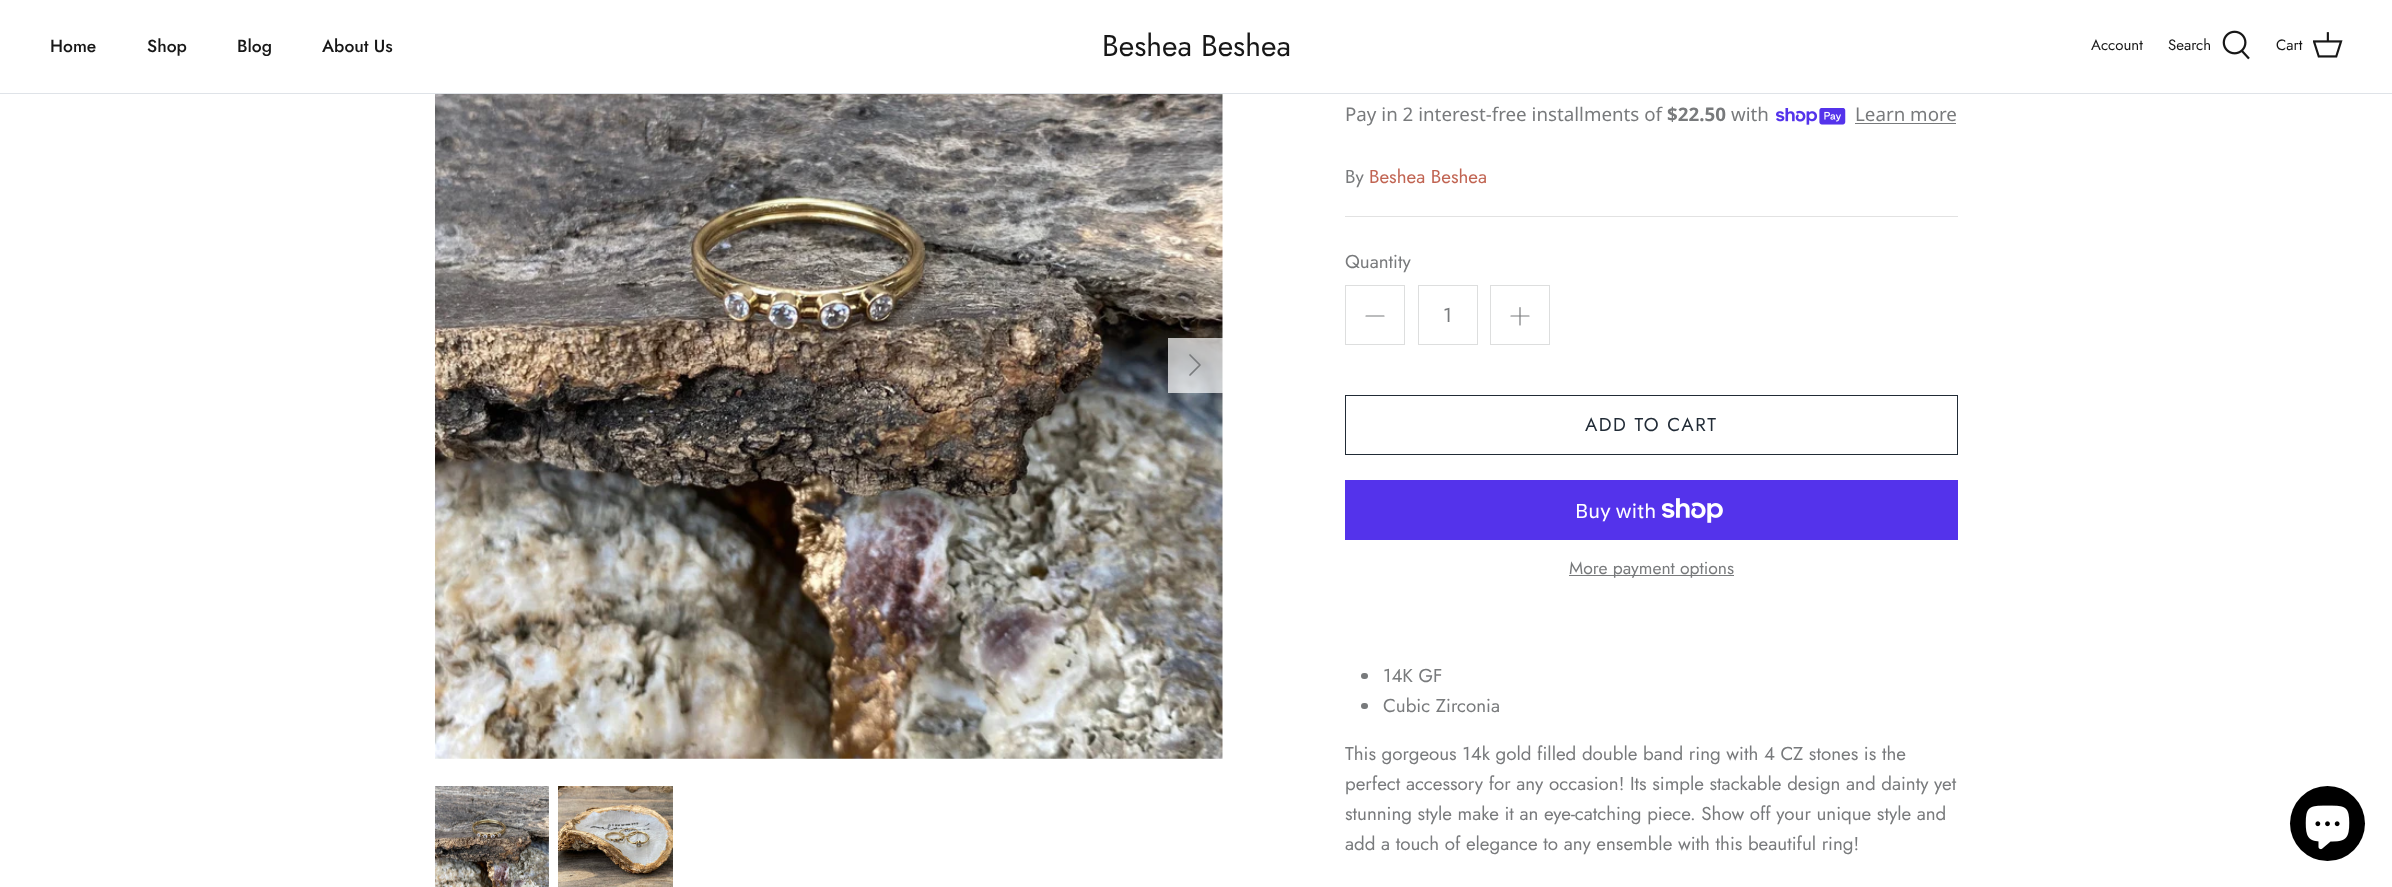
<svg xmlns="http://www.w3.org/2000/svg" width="2392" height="887">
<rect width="100%" height="100%" fill="#fff"/>
<rect y="93" width="2392" height="1" fill="#dfe3e8"/>
<text x="50" y="52" style="font-family:Jost;font-size:17.5px;font-weight:500;fill:#171717">Home</text>
<text x="147" y="52" style="font-family:Jost;font-size:17.5px;font-weight:500;fill:#171717">Shop</text>
<text x="237" y="52" style="font-family:Jost;font-size:17.5px;font-weight:500;fill:#171717">Blog</text>
<text x="322" y="52" style="font-family:Jost;font-size:17.5px;font-weight:500;fill:#171717">About Us</text>
<text x="1102" y="56" style="font-family:Jost;font-size:30px;fill:#171717">Beshea Beshea</text>
<text x="2091" y="50" style="font-family:Jost;font-size:15px;fill:#171717">Account</text>
<text x="2168" y="50" style="font-family:Jost;font-size:15px;fill:#171717">Search</text>
<image x="2222" y="30" width="28" height="30" href="media/1.png"/>
<text x="2276" y="50" style="font-family:Jost;font-size:15px;fill:#171717">Cart</text>
<image x="2313" y="32" width="30" height="26" href="media/2.png"/>
<image x="435" y="94" width="788" height="665" href="media/3.png"/>
<rect x="1168" y="338" width="55" height="55" fill="#ffffffb3"/>
<path d="M1190 375l10-10l-10-10" fill="none" stroke="#787a7c" stroke-width="1.7" stroke-linecap="round" stroke-linejoin="round"/>
<image x="435" y="786" width="114" height="101" href="media/4.png"/>
<image x="558" y="786" width="115" height="101" href="media/5.png"/>
<text x="1345" y="121" style="font-family:Noto Sans;font-size:18.75px;fill:#787a7c">Pay in 2 interest-free installments of</text>
<text x="1667" y="121" style="font-family:Noto Sans;font-size:18.75px;font-weight:bold;fill:#787a7c">$22.50</text>
<text x="1731" y="121" style="font-family:Noto Sans;font-size:18.75px;fill:#787a7c">with</text>
<image x="1776" y="108" width="70" height="17" href="media/6.png"/>
<text x="1855" y="121" style="font-family:Noto Sans;font-size:18.75px;fill:#787a7c">Learn more</text>
<rect x="1855" y="123" width="101" height="1" fill="#787a7c"/>
<text x="1345" y="183" style="font-family:Jost;font-size:18.75px;fill:#787a7c">By</text>
<text x="1369" y="183" style="font-family:Jost;font-size:18.75px;fill:#c16452">Beshea Beshea</text>
<rect x="1345" y="216" width="613" height="1" fill="#e2e2e2"/>
<text x="1345" y="268" style="font-family:Jost;font-size:18.75px;fill:#787a7c">Quantity</text>
<rect x="1345.5" y="285.5" width="59" height="59" fill="none" stroke="#dddede"/>
<path d="M1366 316h18" fill="none" stroke="#787a7c" stroke-width="1.2" stroke-linecap="round" stroke-linejoin="round"/>
<rect x="1418.5" y="285.5" width="59" height="59" fill="none" stroke="#dddede"/>
<text x="1443" y="322" style="font-family:Jost;font-size:20px;fill:#787a7c">1</text>
<rect x="1490.5" y="285.5" width="59" height="59" fill="none" stroke="#dddede"/>
<path d="M1520 307.5v17.5m-9-9h18" fill="none" stroke="#787a7c" stroke-width="1.2" stroke-linecap="round" stroke-linejoin="round"/>
<rect x="1345.5" y="395.5" width="612" height="59" fill="none" stroke="#212b36"/>
<text x="1585" y="431" style="font-family:Jost;font-size:18.75px;letter-spacing:1.5px;fill:#212b36">ADD TO CART</text>
<rect x="1345" y="480" width="613" height="60" fill="#5433eb"/>
<text x="1575" y="518" style="font-family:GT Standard;font-size:20px;fill:#fff">Buy with</text>
<image x="1661" y="498" width="62" height="25" href="media/7.png"/>
<rect x="1569" y="575" width="165" height="1" fill="#787a7c"/>
<text x="1569" y="574" style="font-family:Jost;font-size:17.5px;fill:#787a7c">More payment options</text>
<rect x="1361" y="673" width="7" height="6" rx="3" fill="#787a7c"/>
<text x="1383" y="682" style="font-family:Jost;font-size:18.75px;fill:#787a7c">14K GF</text>
<rect x="1361" y="703" width="7" height="6" rx="3" fill="#787a7c"/>
<text x="1383" y="712" style="font-family:Jost;font-size:18.75px;fill:#787a7c">Cubic Zirconia</text>
<text x="1345" y="760" style="font-family:Jost;font-size:18.75px;fill:#787a7c">This gorgeous 14k gold filled double band ring with 4 CZ stones is the</text>
<text x="1345" y="790" style="font-family:Jost;font-size:18.75px;fill:#787a7c">perfect accessory for any occasion! Its simple stackable design and dainty yet</text>
<text x="1345" y="820" style="font-family:Jost;font-size:18.75px;fill:#787a7c">stunning style make it an eye-catching piece. Show off your unique style and</text>
<text x="1345" y="850" style="font-family:Jost;font-size:18.75px;fill:#787a7c">add a touch of elegance to any ensemble with this beautiful ring!</text>
<circle cx="2327.5" cy="823.5" r="37.5" fill="#000"/>
<image x="2305" y="805" width="45" height="45" href="media/8.png"/>
</svg>
